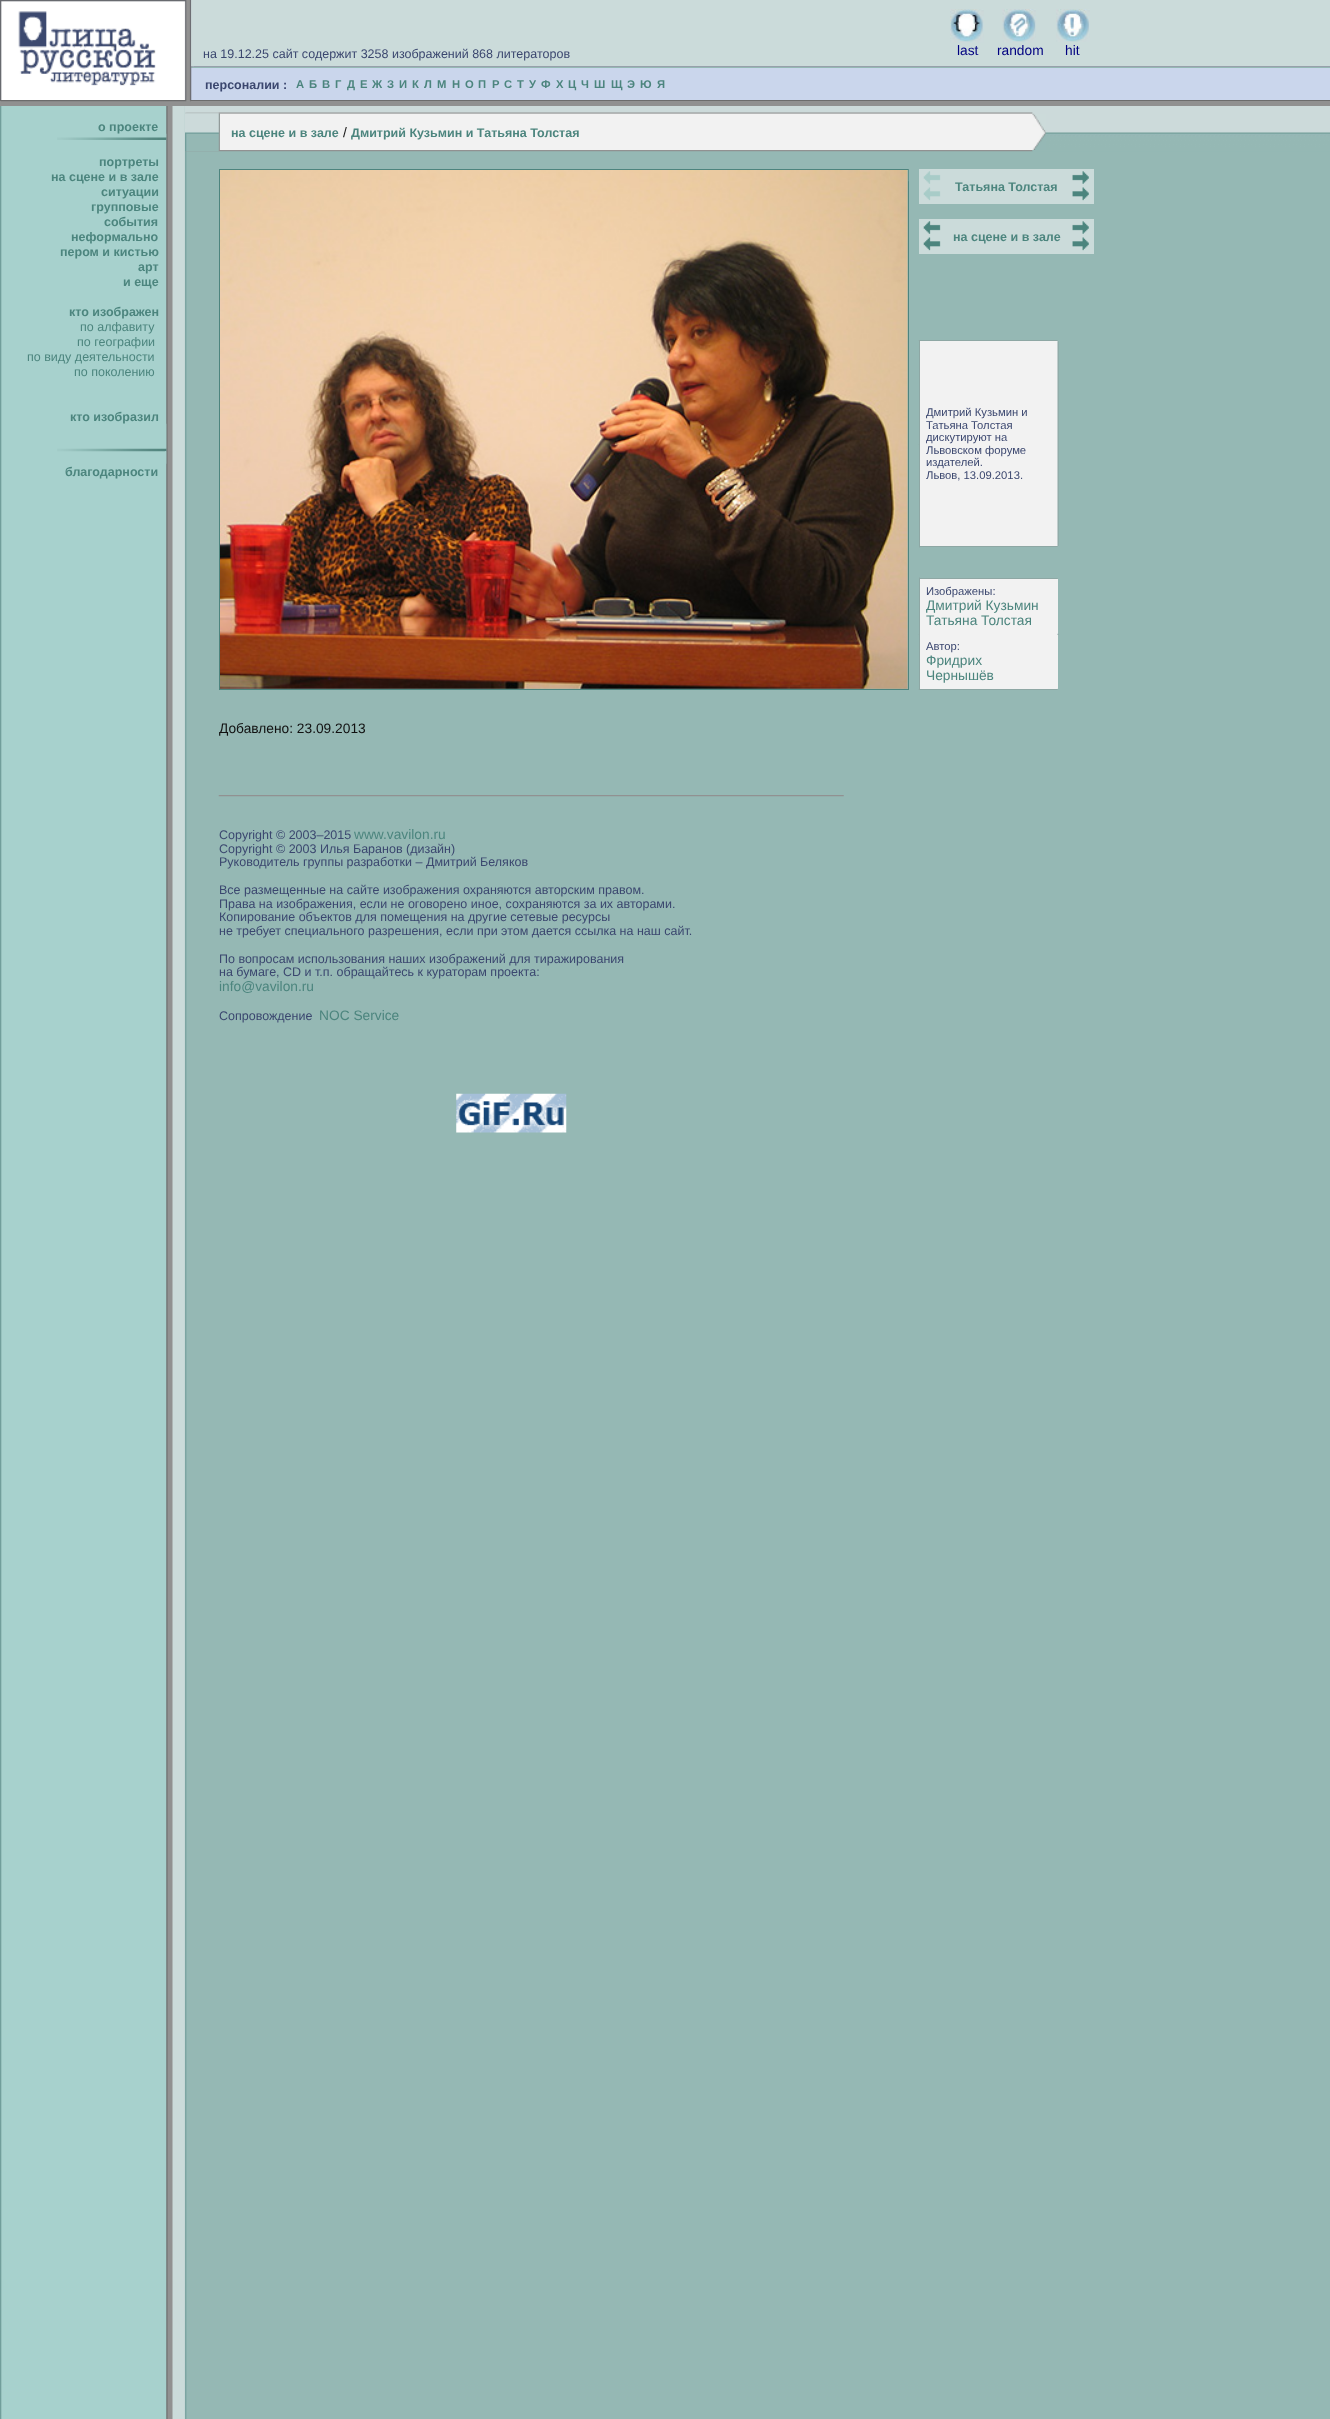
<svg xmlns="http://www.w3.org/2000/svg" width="1330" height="2419">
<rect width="100%" height="100%" fill="#fff"/>
<image x="0" y="67" width="1330" height="2352" href="media/1.png"/>
<rect x="191" width="1139" height="66" fill="#cbdbda"/>
<rect x="191" y="66" width="1139" height="1" fill="#97a1ab"/>
<rect x="191" y="68" width="1139" height="32" fill="#cad6ec"/>
<image x="0" y="0" width="192" height="100" href="media/2.png"/>
<image x="191" y="0" width="2" height="67" href="media/3.png"/>
<text x="203" y="58" style="font-family:Liberation Sans;font-size:12.5px;fill:#3b476f">на 19.12.25 сайт содержит 3258 изображений 868 литераторов</text>
<image x="192" y="66" width="2" height="1" href="media/4.png"/>
<image x="950" y="9" width="34" height="34" href="media/5.png"/>
<text x="957" y="55" style="font-family:Liberation Sans;font-size:13.75px;fill:#000080">last</text>
<image x="1002" y="9" width="34" height="34" href="media/6.png"/>
<text x="997" y="55" style="font-family:Liberation Sans;font-size:13.75px;fill:#000080">random</text>
<image x="1056" y="9" width="34" height="33" href="media/7.png"/>
<text x="1065" y="55" style="font-family:Liberation Sans;font-size:13.75px;fill:#000080">hit</text>
<image x="191" y="66" width="2" height="2" href="media/8.png"/>
<text x="205" y="89" style="font-family:Liberation Sans;font-size:12.5px;font-weight:bold;fill:#3b476f">персоналии :</text>
<text x="296" y="88" style="font-family:Liberation Sans;font-size:11.25px;font-weight:bold;fill:#4c857e">А</text>
<text x="309" y="88" style="font-family:Liberation Sans;font-size:11.25px;font-weight:bold;fill:#4c857e">Б</text>
<text x="322" y="88" style="font-family:Liberation Sans;font-size:11.25px;font-weight:bold;fill:#4c857e">В</text>
<text x="335" y="88" style="font-family:Liberation Sans;font-size:11.25px;font-weight:bold;fill:#4c857e">Г</text>
<text x="347" y="88" style="font-family:Liberation Sans;font-size:11.25px;font-weight:bold;fill:#4c857e">Д</text>
<text x="360" y="88" style="font-family:Liberation Sans;font-size:11.25px;font-weight:bold;fill:#4c857e">Е</text>
<text x="372" y="88" style="font-family:Liberation Sans;font-size:11.25px;font-weight:bold;fill:#4c857e">Ж</text>
<text x="387" y="88" style="font-family:Liberation Sans;font-size:11.25px;font-weight:bold;fill:#4c857e">З</text>
<text x="399" y="88" style="font-family:Liberation Sans;font-size:11.25px;font-weight:bold;fill:#4c857e">И</text>
<text x="412" y="88" style="font-family:Liberation Sans;font-size:11.25px;font-weight:bold;fill:#4c857e">К</text>
<text x="424" y="88" style="font-family:Liberation Sans;font-size:11.25px;font-weight:bold;fill:#4c857e">Л</text>
<text x="437" y="88" style="font-family:Liberation Sans;font-size:11.25px;font-weight:bold;fill:#4c857e">М</text>
<text x="452" y="88" style="font-family:Liberation Sans;font-size:11.25px;font-weight:bold;fill:#4c857e">Н</text>
<text x="465" y="88" style="font-family:Liberation Sans;font-size:11.25px;font-weight:bold;fill:#4c857e">О</text>
<text x="478" y="88" style="font-family:Liberation Sans;font-size:11.25px;font-weight:bold;fill:#4c857e">П</text>
<text x="492" y="88" style="font-family:Liberation Sans;font-size:11.25px;font-weight:bold;fill:#4c857e">Р</text>
<text x="504" y="88" style="font-family:Liberation Sans;font-size:11.25px;font-weight:bold;fill:#4c857e">С</text>
<text x="517" y="88" style="font-family:Liberation Sans;font-size:11.25px;font-weight:bold;fill:#4c857e">Т</text>
<text x="529" y="88" style="font-family:Liberation Sans;font-size:11.25px;font-weight:bold;fill:#4c857e">У</text>
<text x="541" y="88" style="font-family:Liberation Sans;font-size:11.25px;font-weight:bold;fill:#4c857e">Ф</text>
<text x="556" y="88" style="font-family:Liberation Sans;font-size:11.25px;font-weight:bold;fill:#4c857e">Х</text>
<text x="568" y="88" style="font-family:Liberation Sans;font-size:11.25px;font-weight:bold;fill:#4c857e">Ц</text>
<text x="581" y="88" style="font-family:Liberation Sans;font-size:11.25px;font-weight:bold;fill:#4c857e">Ч</text>
<text x="594" y="88" style="font-family:Liberation Sans;font-size:11.25px;font-weight:bold;fill:#4c857e">Ш</text>
<text x="611" y="88" style="font-family:Liberation Sans;font-size:11.25px;font-weight:bold;fill:#4c857e">Щ</text>
<text x="627" y="88" style="font-family:Liberation Sans;font-size:11.25px;font-weight:bold;fill:#4c857e">Э</text>
<text x="640" y="88" style="font-family:Liberation Sans;font-size:11.25px;font-weight:bold;fill:#4c857e">Ю</text>
<text x="657" y="88" style="font-family:Liberation Sans;font-size:11.25px;font-weight:bold;fill:#4c857e">Я</text>
<rect x="191" y="100" width="1139" height="1" fill="#6c6c6c"/>
<rect y="101" width="1330" height="5" fill="#909090"/>
<image x="0" y="100" width="191" height="2" href="media/9.png"/>
<image x="0" y="101" width="1" height="6" href="media/10.png"/>
<rect x="185" y="106" width="1145" height="26" fill="#ccdada"/>
<image x="185" y="112" width="848" height="2" href="media/15.png"/>
<image x="185" y="112" width="2" height="1" href="media/11.png"/>
<text x="98" y="131" style="font-family:Liberation Sans;font-size:12.5px;font-weight:bold;fill:#4c857e">о проекте</text>
<image x="166" y="133" width="1" height="5" href="media/12.png"/>
<image x="57" y="137" width="110" height="3" href="media/13.png"/>
<image x="185" y="132" width="1145" height="20" href="media/14.png"/>
<image x="185" y="112" width="34" height="2" href="media/16.png"/>
<image x="220" y="113" width="813" height="1" href="media/19.png"/>
<image x="1032" y="112" width="1" height="2" href="media/17.png"/>
<image x="185" y="113" width="35" height="37" href="media/18.png"/>
<rect x="220" y="114" width="813" height="36" fill="#f2f2f2"/>
<text x="231" y="137" style="font-family:Liberation Sans;font-size:12.5px;font-weight:bold;fill:#4c857e">на сцене и в зале</text>
<text x="343" y="137" style="font-family:Liberation Sans;font-size:13.75px;fill:#111">/</text>
<text x="351" y="137" style="font-family:Liberation Sans;font-size:12.5px;font-weight:bold;fill:#4c857e">Дмитрий Кузьмин и Татьяна Толстая</text>
<image x="1032" y="113" width="14" height="37" href="media/20.png"/>
<image x="185" y="150" width="848" height="2" href="media/21.png"/>
<image x="185" y="150" width="34" height="2" href="media/22.png"/>
<rect x="1032" y="150" width="1" height="1" fill="#94afac"/>
<text x="99" y="166" style="font-family:Liberation Sans;font-size:12.5px;font-weight:bold;fill:#4c857e">портреты</text>
<text x="51" y="181" style="font-family:Liberation Sans;font-size:12.5px;font-weight:bold;fill:#4c857e">на сцене и в зале</text>
<text x="101" y="196" style="font-family:Liberation Sans;font-size:12.5px;font-weight:bold;fill:#4c857e">ситуации</text>
<text x="91" y="211" style="font-family:Liberation Sans;font-size:12.5px;font-weight:bold;fill:#4c857e">групповые</text>
<text x="104" y="226" style="font-family:Liberation Sans;font-size:12.5px;font-weight:bold;fill:#4c857e">события</text>
<text x="71" y="241" style="font-family:Liberation Sans;font-size:12.5px;font-weight:bold;fill:#4c857e">неформально</text>
<text x="60" y="256" style="font-family:Liberation Sans;font-size:12.5px;font-weight:bold;fill:#4c857e">пером и кистью</text>
<text x="138" y="271" style="font-family:Liberation Sans;font-size:12.5px;font-weight:bold;fill:#4c857e">арт</text>
<text x="123" y="286" style="font-family:Liberation Sans;font-size:12.5px;font-weight:bold;fill:#4c857e">и еще</text>
<text x="69" y="316" style="font-family:Liberation Sans;font-size:12.5px;font-weight:bold;fill:#4c857e">кто изображен</text>
<text x="80" y="331" style="font-family:Liberation Sans;font-size:12.5px;fill:#4c857e">по алфавиту</text>
<text x="77" y="346" style="font-family:Liberation Sans;font-size:12.5px;fill:#4c857e">по географии</text>
<text x="27" y="361" style="font-family:Liberation Sans;font-size:12.5px;fill:#4c857e">по виду деятельности</text>
<text x="74" y="376" style="font-family:Liberation Sans;font-size:12.5px;fill:#4c857e">по поколению</text>
<text x="70" y="421" style="font-family:Liberation Sans;font-size:12.5px;font-weight:bold;fill:#4c857e">кто изобразил</text>
<image x="166" y="423" width="1" height="26" href="media/23.png"/>
<image x="57" y="448" width="110" height="4" href="media/24.png"/>
<image x="165" y="451" width="2" height="13" href="media/25.png"/>
<text x="65" y="476" style="font-family:Liberation Sans;font-size:12.5px;font-weight:bold;fill:#4c857e">благодарности</text>
<rect x="219.5" y="169.5" width="689" height="520" fill="none" stroke="#4d847e"/>
<image x="220" y="170" width="688" height="519" href="media/26.png"/>
<image x="908" y="169" width="1" height="13" href="media/27.png"/>
<rect x="919" y="169" width="175" height="35" fill="#cbdbda"/>
<image x="923" y="171" width="18" height="30" href="media/28.png"/>
<text x="955" y="191" style="font-family:Liberation Sans;font-size:12.5px;font-weight:bold;fill:#4c857e">Татьяна Толстая</text>
<image x="1072" y="171" width="17" height="30" href="media/29.png"/>
<rect x="919" y="219" width="175" height="35" fill="#cbdbda"/>
<image x="923" y="221" width="18" height="30" href="media/30.png"/>
<text x="953" y="241" style="font-family:Liberation Sans;font-size:12.5px;font-weight:bold;fill:#4c857e">на сцене и в зале</text>
<image x="1072" y="221" width="17" height="30" href="media/29.png"/>
<rect x="919" y="340" width="139" height="1" fill="#8ea7a4"/>
<rect x="918" y="340" width="1" height="1" fill="#94b4b0"/>
<rect x="920" y="341" width="138" height="205" fill="#f2f2f2"/>
<image x="1057" y="340" width="1" height="2" href="media/31.png"/>
<rect x="919" y="341" width="1" height="205" fill="#8ea7a4"/>
<rect x="918" y="444" width="1" height="1" fill="#94b4b0"/>
<text x="926" y="416" style="font-family:Liberation Sans;font-size:11.25px;fill:#3b476f">Дмитрий Кузьмин и</text>
<text x="926" y="429" style="font-family:Liberation Sans;font-size:11.25px;fill:#3b476f">Татьяна Толстая</text>
<text x="926" y="441" style="font-family:Liberation Sans;font-size:11.25px;fill:#3b476f">дискутируют на</text>
<text x="926" y="454" style="font-family:Liberation Sans;font-size:11.25px;fill:#3b476f">Львовском форуме</text>
<text x="926" y="466" style="font-family:Liberation Sans;font-size:11.25px;fill:#3b476f">издателей.</text>
<text x="926" y="479" style="font-family:Liberation Sans;font-size:11.25px;fill:#3b476f">Львов, 13.09.2013.</text>
<image x="1057" y="341" width="2" height="205" href="media/32.png"/>
<rect x="919" y="546" width="139" height="1" fill="#8ea7a4"/>
<rect x="919" y="547" width="1" height="1" fill="#91b0ad"/>
<rect x="1057" y="546" width="1" height="1" fill="#91adaa"/>
<rect x="919" y="578" width="139" height="1" fill="#8ea7a4"/>
<rect x="919" y="577" width="1" height="1" fill="#91b0ad"/>
<rect x="1057" y="578" width="1" height="1" fill="#91adaa"/>
<rect x="919" y="579" width="1" height="110" fill="#8ea7a4"/>
<rect x="918" y="634" width="1" height="1" fill="#94b4b0"/>
<rect x="920" y="579" width="138" height="110" fill="#f2f2f2"/>
<text x="926" y="595" style="font-family:Liberation Sans;font-size:11.25px;fill:#3b476f">Изображены:</text>
<text x="926" y="610" style="font-family:Liberation Sans;font-size:13.75px;fill:#4c857e">Дмитрий Кузьмин</text>
<text x="926" y="625" style="font-family:Liberation Sans;font-size:13.75px;fill:#4c857e">Татьяна Толстая</text>
<text x="926" y="650" style="font-family:Liberation Sans;font-size:11.25px;fill:#3b476f">Автор:</text>
<text x="926" y="665" style="font-family:Liberation Sans;font-size:13.75px;fill:#4c857e">Фридрих</text>
<text x="926" y="680" style="font-family:Liberation Sans;font-size:13.75px;fill:#4c857e">Чернышёв</text>
<image x="1057" y="633" width="2" height="2" href="media/33.png"/>
<rect x="919" y="689" width="139" height="1" fill="#8ea7a4"/>
<image x="1057" y="688" width="1" height="2" href="media/34.png"/>
<rect x="918" y="689" width="1" height="1" fill="#94b4b0"/>
<text x="219" y="733" style="font-family:Liberation Sans;font-size:13.75px;fill:#111">Добавлено: 23.09.2013</text>
<image x="218" y="795" width="626" height="2" href="media/35.png"/>
<text x="219" y="839" style="font-family:Liberation Sans;font-size:12.5px;fill:#3b476f">Copyright © 2003–2015</text>
<text x="354" y="839" style="font-family:Liberation Sans;font-size:13.75px;fill:#4c857e">www.vavilon.ru</text>
<text x="219" y="853" style="font-family:Liberation Sans;font-size:12.5px;fill:#3b476f">Copyright © 2003 Илья Баранов (дизайн)</text>
<text x="219" y="866" style="font-family:Liberation Sans;font-size:12.5px;fill:#3b476f">Руководитель группы разработки – Дмитрий Беляков</text>
<text x="219" y="894" style="font-family:Liberation Sans;font-size:12.5px;fill:#3b476f">Все размещенные на сайте изображения охраняются авторским правом.</text>
<text x="219" y="908" style="font-family:Liberation Sans;font-size:12.5px;fill:#3b476f">Права на изображения, если не оговорено иное, сохраняются за их авторами.</text>
<text x="219" y="921" style="font-family:Liberation Sans;font-size:12.5px;fill:#3b476f">Копирование объектов для помещения на другие сетевые ресурсы</text>
<text x="219" y="935" style="font-family:Liberation Sans;font-size:12.5px;fill:#3b476f">не требует специального разрешения, если при этом дается ссылка на наш сайт.</text>
<text x="219" y="963" style="font-family:Liberation Sans;font-size:12.5px;fill:#3b476f">По вопросам использования наших изображений для тиражирования</text>
<text x="219" y="976" style="font-family:Liberation Sans;font-size:12.5px;fill:#3b476f">на бумаге, CD и т.п. обращайтесь к кураторам проекта:</text>
<text x="219" y="991" style="font-family:Liberation Sans;font-size:13.75px;fill:#4c857e">info@vavilon.ru</text>
<text x="219" y="1020" style="font-family:Liberation Sans;font-size:12.5px;fill:#3b476f">Сопровождение</text>
<text x="319" y="1020" style="font-family:Liberation Sans;font-size:13.75px;fill:#4c857e">NOC Service</text>
<image x="456" y="1093" width="111" height="40" href="media/36.png"/>
</svg>
